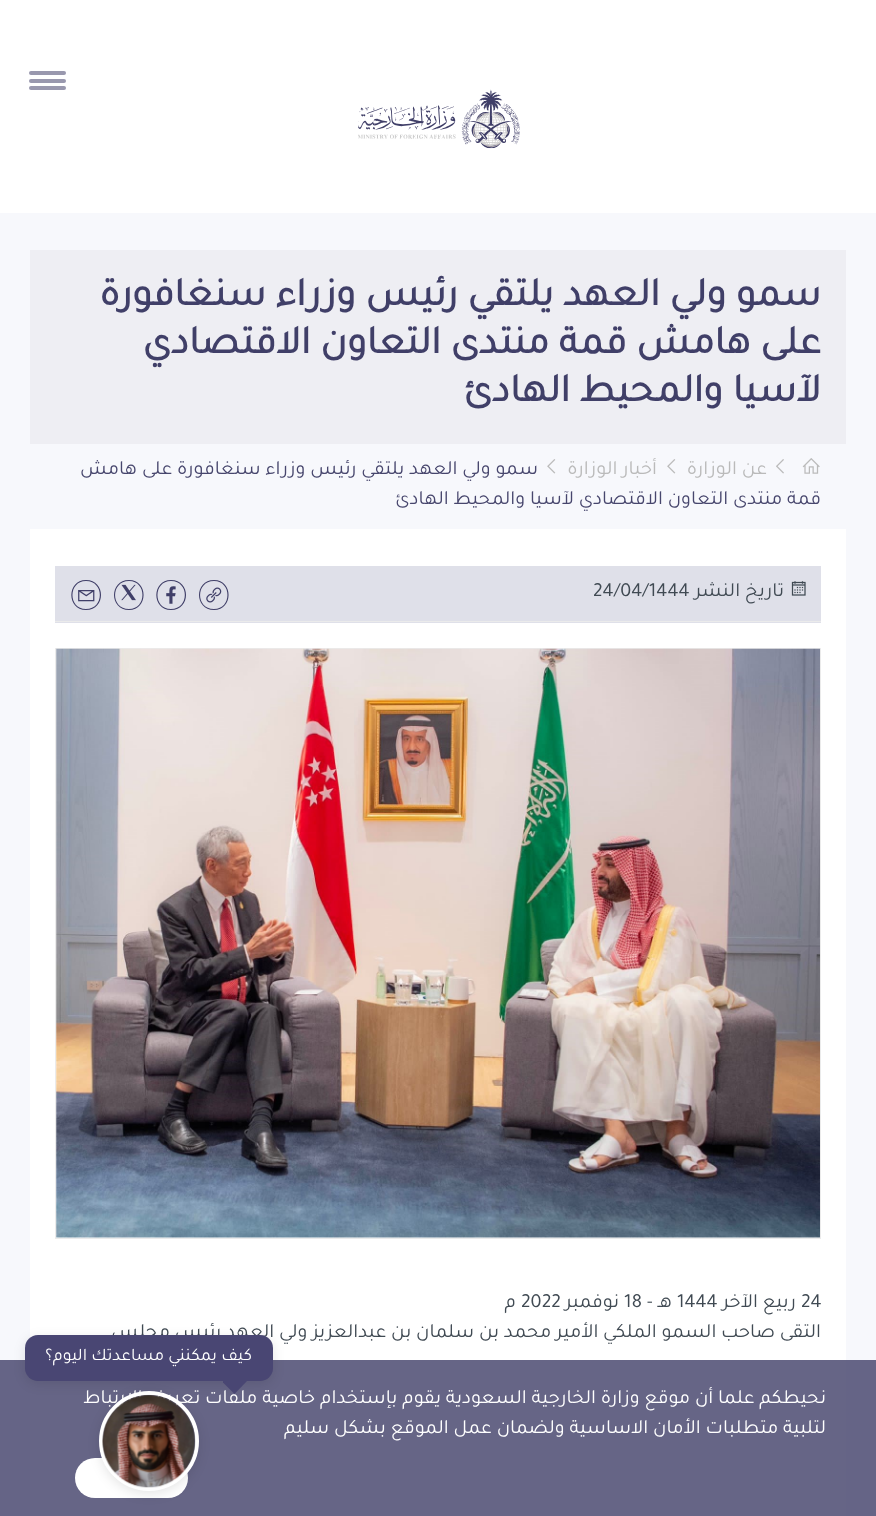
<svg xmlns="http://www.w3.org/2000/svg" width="876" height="1516">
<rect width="100%" height="100%" fill="#f7f8fc"/>
<rect width="876" height="213" fill="#fff"/>
<rect x="29" y="71" width="37" height="4" rx="2" fill="#9998ae"/>
<rect x="29" y="79" width="37" height="4" rx="2" fill="#9998ae"/>
<rect x="29" y="86" width="37" height="4" rx="2" fill="#9998ae"/>
<image x="358" y="89" width="162" height="60" href="media/1.png"/>
<rect x="30" y="529" width="816" height="987" fill="#fff"/>
<rect x="30" y="250" width="816" height="194" fill="#eeeef3"/>
<text x="821" y="305" style="font-family:Tajawal;font-size:40px;font-weight:bold;direction:rtl;fill:#403f68">سمو ولي العهد يلتقي رئيس وزراء سنغافورة</text>
<text x="821" y="353" style="font-family:Tajawal;font-size:40px;font-weight:bold;direction:rtl;fill:#403f68">على هامش قمة منتدى التعاون الاقتصادي</text>
<text x="821" y="401" style="font-family:Tajawal;font-size:40px;font-weight:bold;direction:rtl;fill:#403f68">لآسيا والمحيط الهادئ</text>
<image x="776" y="459" width="8" height="15" href="media/2.png"/>
<text x="767" y="474" style="font-family:Tajawal;font-size:20px;direction:rtl;fill:#bababa">عن الوزارة</text>
<image x="667" y="459" width="9" height="15" href="media/3.png"/>
<text x="657" y="474" style="font-family:Tajawal;font-size:20px;direction:rtl;fill:#bababa">أخبار الوزارة</text>
<image x="547" y="459" width="9" height="15" href="media/3.png"/>
<text x="538" y="474" style="font-family:Tajawal;font-size:20px;direction:rtl;fill:#47466d">سمو ولي العهد يلتقي رئيس وزراء سنغافورة على هامش</text>
<text x="821" y="504" style="font-family:Tajawal;font-size:20px;direction:rtl;fill:#47466d">قمة منتدى التعاون الاقتصادي لآسيا والمحيط الهادئ</text>
<image x="802" y="458" width="18" height="16" href="media/4.png"/>
<rect x="55" y="566" width="766" height="57" fill="#dfe0e9"/>
<rect x="55" y="621" width="766" height="1" fill="#ebebeb"/>
<image x="791" y="581" width="15" height="15" href="media/5.png"/>
<text x="784" y="596" style="font-family:Tajawal;font-size:20px;direction:rtl;fill:#404a53">تاريخ النشر</text>
<text x="593" y="596" style="font-family:Tajawal;font-size:20px;fill:#404a53">24/04/1444</text>
<path d="M214 580c-20 0-20 30 0 30c19.5 0 19.5-30 0-30zm0 1c18 0 18 28 0 28c-18.5 0-18.5-28 0-28z" fill="#403f68"/>
<image x="206" y="587" width="16" height="16" href="media/6.png"/>
<path d="M171 580c-19.5 0-19.5 30 0 30c20 0 20-30 0-30zm0 1c18.5 0 18.5 28 0 28c-18 0-18-28 0-28z" fill="#403f68"/>
<image x="166" y="586" width="10" height="18" href="media/7.png"/>
<path d="M129 580c-20 0-20 30 0 30c19.5 0 19.5-30 0-30zm0 1c18 0 18 28 0 28c-18.5 0-18.5-28 0-28z" fill="#403f68"/>
<image x="121" y="584" width="15" height="17" href="media/8.png"/>
<path d="M86 580c-19.5 0-19.5 30 0 30c20 0 20-30 0-30zm0 1c18.5 0 18.5 28 0 28c-18 0-18-28 0-28z" fill="#403f68"/>
<image x="78" y="590" width="17" height="12" href="media/9.png"/>
<rect x="55.5" y="648.5" width="765" height="590" fill="none" stroke="#ebebeb"/>
<image x="56" y="648" width="764" height="590" href="media/10.png"/>
<text x="801" y="1307" style="font-family:Tajawal;font-size:20px;fill:#404a53">24</text>
<text x="796" y="1307" style="font-family:Tajawal;font-size:20px;direction:rtl;fill:#404a53">ربيع الآخر</text>
<text x="677" y="1307" style="font-family:Tajawal;font-size:20px;fill:#404a53">1444</text>
<text x="672" y="1307" style="font-family:Tajawal;font-size:20px;direction:rtl;fill:#404a53">هـ -</text>
<text x="624" y="1307" style="font-family:Tajawal;font-size:20px;fill:#404a53">18</text>
<text x="619" y="1307" style="font-family:Tajawal;font-size:20px;direction:rtl;fill:#404a53">نوفمبر</text>
<text x="521" y="1307" style="font-family:Tajawal;font-size:20px;fill:#404a53">2022</text>
<text x="516" y="1307" style="font-family:Tajawal;font-size:20px;direction:rtl;fill:#404a53">م</text>
<text x="821" y="1337" style="font-family:Tajawal;font-size:20px;direction:rtl;fill:#404a53">التقى صاحب السمو الملكي الأمير محمد بن سلمان بن عبدالعزيز ولي العهد رئيس مجلس</text>
<rect y="1360" width="876" height="156" fill="#403f68cc"/>
<text x="826" y="1403" style="font-family:Tajawal;font-size:20px;direction:rtl;fill:#fff">نحيطكم علما أن موقع وزارة الخارجية السعودية يقوم بإستخدام خاصية ملفات تعريف الإرتباط</text>
<text x="826" y="1433" style="font-family:Tajawal;font-size:20px;direction:rtl;fill:#fff">لتلبية متطلبات الأمان الاساسية ولضمان عمل الموقع بشكل سليم</text>
<rect x="75" y="1458" width="113" height="40" rx="20" fill="#fff"/>
<rect x="99" y="1394" width="100" height="100" rx="50" fill="#0000001a" filter="blur(6px)"/>
<circle cx="149" cy="1441" r="48" fill="none" stroke="#fff" stroke-width="4"/>
<image x="102" y="1394" width="94" height="94" href="media/11.png"/>
<rect x="25" y="1338" width="248" height="46" rx="13" fill="#0000001a" filter="blur(6px)"/>
<rect x="25" y="1335" width="248" height="46" rx="13" fill="#494673"/>
<text x="252" y="1360" style="font-family:Tajawal;font-size:17.5px;direction:rtl;fill:#fff">كيف يمكنني مساعدتك اليوم؟</text>
<path d="M223 1382.5v-1.5h24l-12.5 13z" fill="#494673"/>
</svg>
